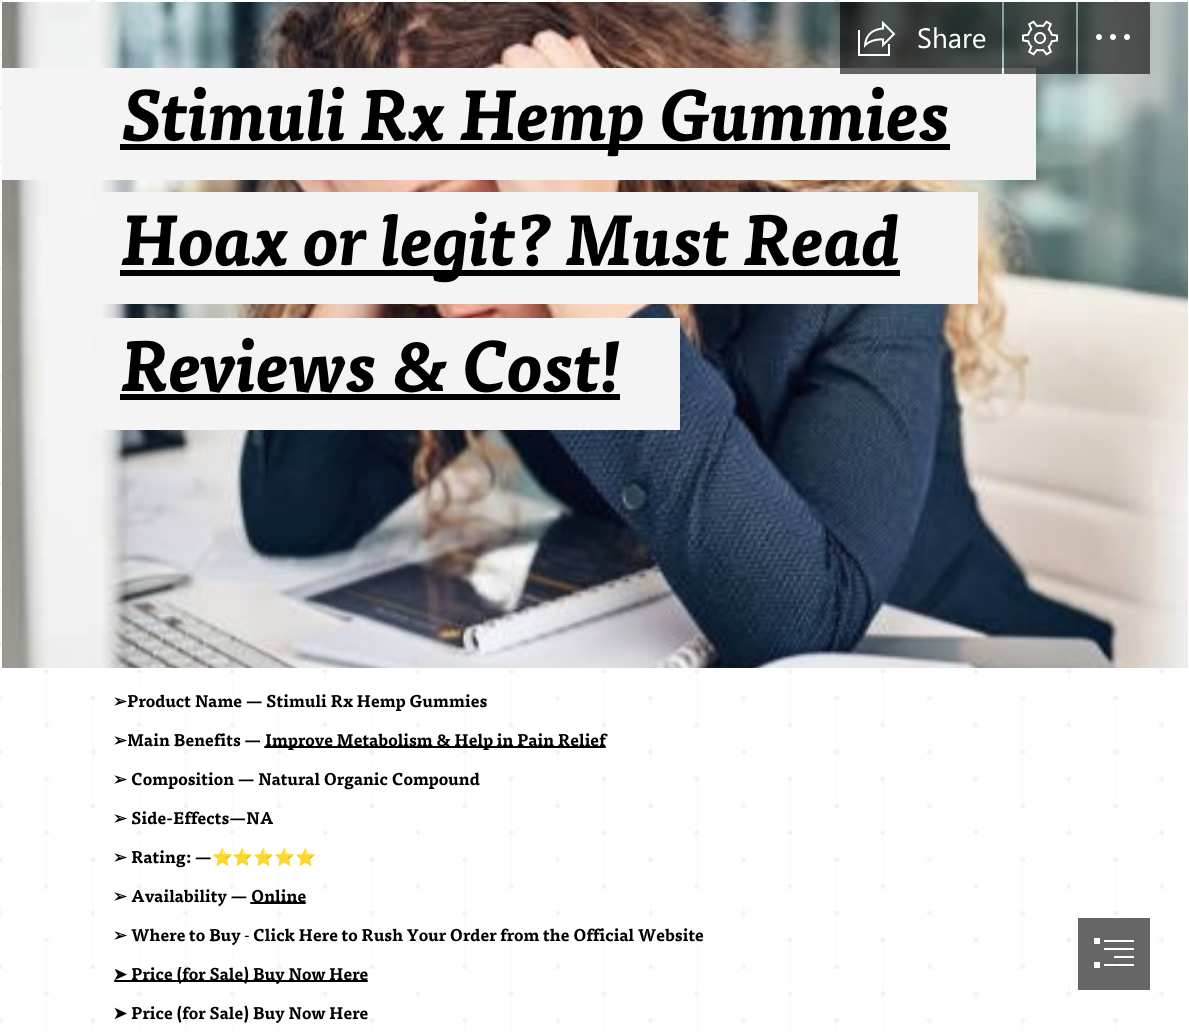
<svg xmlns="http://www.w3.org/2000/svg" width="1189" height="1032">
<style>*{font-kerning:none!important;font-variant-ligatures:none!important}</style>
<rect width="100%" height="100%" fill="#f3f3f3"/>
<image x="0" y="0" width="1189" height="1032" href="media/4.png"/>
<image x="2" y="2" width="1186" height="666" href="media/5.png"/>
<rect x="2" y="68" width="1034" height="112" fill="#f4f4f4"/>
<rect x="840" y="2" width="162" height="72" fill="#00000099"/>
<image x="858" y="20" width="38" height="36" href="media/1.png"/>
<text x="917" y="48" style="font-family:Segoe UI;font-size:28px;fill:#fff">Share</text>
<rect x="1004" y="2" width="72" height="72" fill="#00000099"/>
<image x="1022" y="20" width="36" height="36" href="media/2.png"/>
<rect x="1078" y="2" width="72" height="72" fill="#00000099"/>
<image x="1096" y="34" width="34" height="6" href="media/3.png"/>
<rect x="120" y="144" width="830" height="6" fill="#000"/>
<text x="121" y="140" style="font-family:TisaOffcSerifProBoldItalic;font-size:69.75px;font-weight:bold;font-style:italic;fill:#000">Stimuli Rx Hemp Gummies</text>
<rect x="98" y="192" width="880" height="112" fill="#f4f4f4"/>
<rect x="120" y="270" width="780" height="6" fill="#000"/>
<text x="121" y="265" style="font-family:TisaOffcSerifProBoldItalic;font-size:69.75px;font-weight:bold;font-style:italic;fill:#000">Hoax or legit? Must Read</text>
<rect x="98" y="318" width="582" height="112" fill="#f4f4f4"/>
<text x="121" y="391" style="font-family:TisaOffcSerifProBoldItalic;font-size:69.75px;font-weight:bold;font-style:italic;fill:#000">Reviews &amp; Cost!</text>
<rect x="120" y="394" width="500" height="6" fill="#000"/>
<text x="113" y="707" style="font-family:DejaVu Sans;font-size:16.75px;font-weight:bold;fill:#000">➢</text>
<text x="127" y="707" style="font-family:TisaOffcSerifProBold;font-size:16.75px;font-weight:bold;fill:#000">Product Name — Stimuli Rx Hemp Gummies</text>
<text x="113" y="746" style="font-family:DejaVu Sans;font-size:16.75px;font-weight:bold;fill:#000">➢</text>
<text x="127" y="746" style="font-family:TisaOffcSerifProBold;font-size:16.75px;font-weight:bold;fill:#000">Main Benefits —</text>
<rect x="264" y="746" width="342" height="2" rx="1" fill="#000"/>
<text x="265" y="746" style="font-family:TisaOffcSerifProBold;font-size:16.75px;font-weight:bold;fill:#000">Improve Metabolism &amp; Help in Pain Relief</text>
<text x="113" y="785" style="font-family:DejaVu Sans;font-size:16.75px;font-weight:bold;fill:#000">➢</text>
<text x="131" y="785" style="font-family:TisaOffcSerifProBold;font-size:16.75px;font-weight:bold;fill:#000">Composition — Natural Organic Compound</text>
<text x="113" y="824" style="font-family:DejaVu Sans;font-size:16.75px;font-weight:bold;fill:#000">➢</text>
<text x="131" y="824" style="font-family:TisaOffcSerifProBold;font-size:16.75px;font-weight:bold;fill:#000">Side-Effects—NA</text>
<text x="113" y="863" style="font-family:DejaVu Sans;font-size:16.75px;font-weight:bold;fill:#000">➢</text>
<text x="131" y="863" style="font-family:TisaOffcSerifProBold;font-size:16.75px;font-weight:bold;fill:#000">Rating: —</text>
<text x="212" y="863" style="font-family:Noto Color Emoji;font-size:16.75px;font-weight:bold;fill:#000">⭐⭐⭐⭐⭐</text>
<text x="113" y="902" style="font-family:DejaVu Sans;font-size:16.75px;font-weight:bold;fill:#000">➢</text>
<text x="131" y="902" style="font-family:TisaOffcSerifProBold;font-size:16.75px;font-weight:bold;fill:#000">Availability —</text>
<rect x="250" y="902" width="56" height="2" rx="1" fill="#000"/>
<text x="251" y="902" style="font-family:TisaOffcSerifProBold;font-size:16.75px;font-weight:bold;fill:#000">Online</text>
<text x="113" y="941" style="font-family:DejaVu Sans;font-size:16.75px;font-weight:bold;fill:#000">➢</text>
<text x="131" y="941" style="font-family:TisaOffcSerifProBold;font-size:16.75px;font-weight:bold;fill:#000">Where to Buy</text>
<text x="244" y="941" style="font-family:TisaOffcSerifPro;font-size:16.75px;fill:#000">-</text>
<text x="253" y="941" style="font-family:TisaOffcSerifProBold;font-size:16.75px;font-weight:bold;fill:#000">Click Here to Rush Your Order from the Official Website</text>
<rect x="114" y="980" width="254" height="2" rx="1" fill="#000"/>
<text x="113" y="980" style="font-family:DejaVu Sans;font-size:16.75px;font-weight:bold;fill:#000">➤</text>
<text x="131" y="980" style="font-family:TisaOffcSerifProBold;font-size:16.75px;font-weight:bold;fill:#000">Price (for Sale) Buy Now Here</text>
<text x="113" y="1019" style="font-family:DejaVu Sans;font-size:16.75px;font-weight:bold;fill:#000">➤</text>
<text x="131" y="1019" style="font-family:TisaOffcSerifProBold;font-size:16.75px;font-weight:bold;fill:#000">Price (for Sale) Buy Now Here</text>
<rect x="1078" y="918" width="72" height="72" fill="#00000099"/>
<image x="1094" y="938" width="40" height="30" href="media/6.png"/>
</svg>
